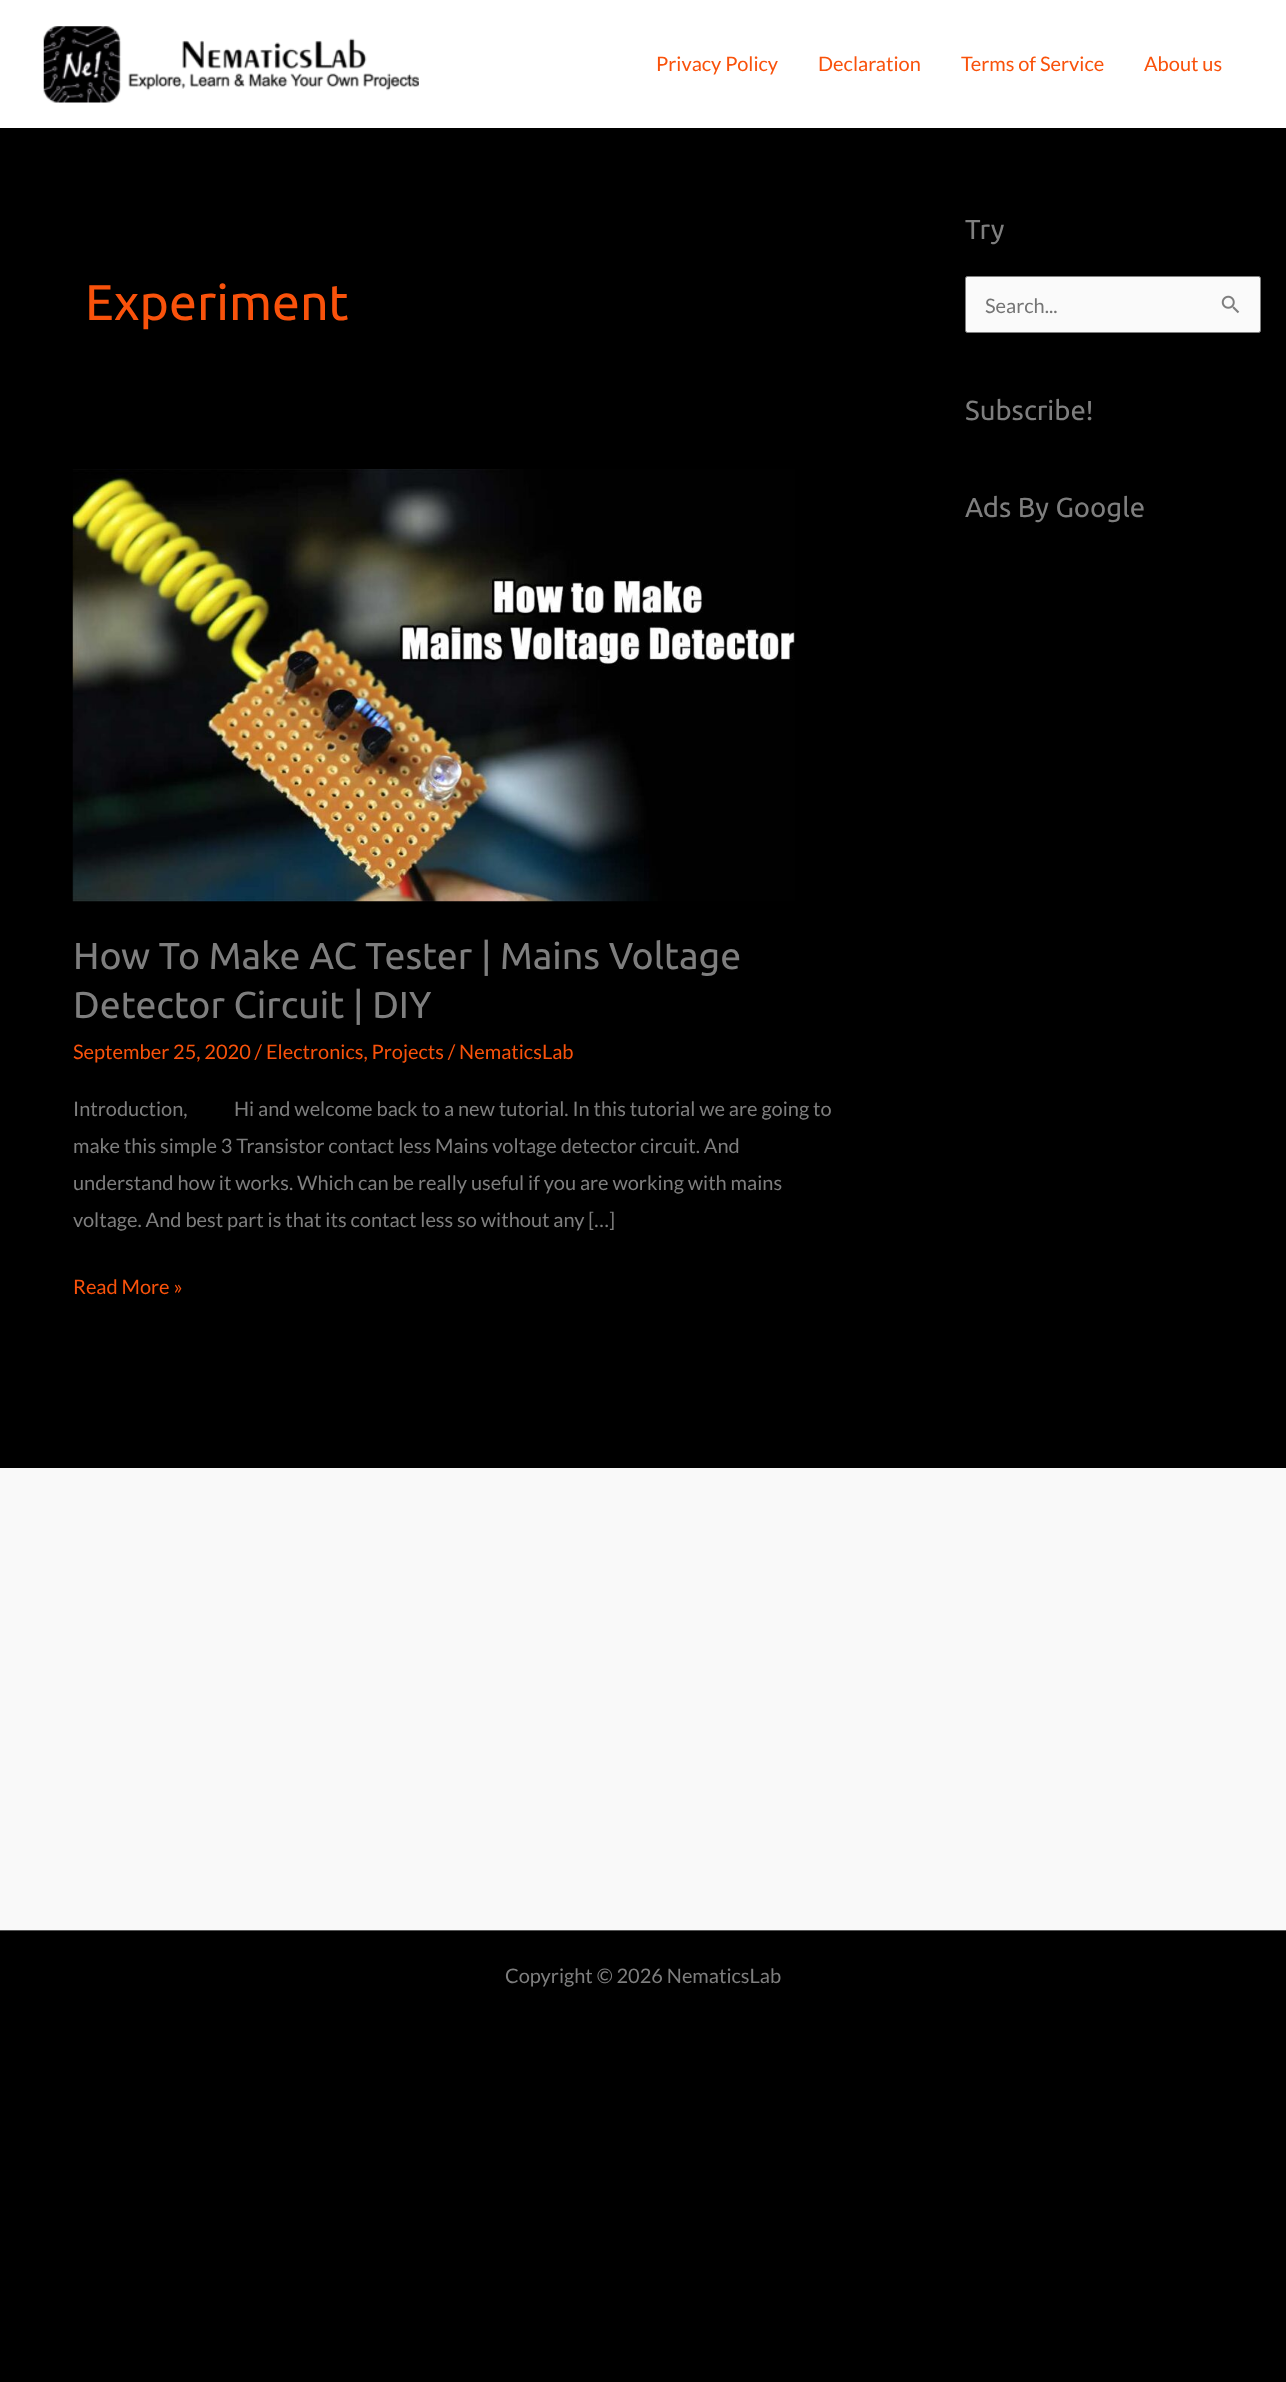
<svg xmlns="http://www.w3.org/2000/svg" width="1286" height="2382">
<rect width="100%" height="100%" fill="#000"/>
<rect width="1286" height="128" fill="#fff"/>
<image x="43" y="26" width="376" height="77" href="media/1.png"/>
<text x="656" y="71" style="font-family:Lato;font-size:20px;fill:#f9520b">Privacy Policy</text>
<text x="818" y="71" style="font-family:Lato;font-size:20px;fill:#f9520b">Declaration</text>
<text x="961" y="71" style="font-family:Lato;font-size:20px;fill:#f9520b">Terms of Service</text>
<text x="1144" y="71" style="font-family:Lato;font-size:20px;fill:#f9520b">About us</text>
<text x="85" y="320" style="font-family:Ubuntu;font-size:50px;fill:#f9520b">Experiment</text>
<image x="72" y="469" width="723" height="433" href="media/2.png"/>
<text x="73" y="969" style="font-family:Ubuntu;font-size:37.5px;fill:#7e7e7e">How To Make AC Tester | Mains Voltage</text>
<text x="73" y="1018" style="font-family:Ubuntu;font-size:37.5px;fill:#7e7e7e">Detector Circuit | DIY</text>
<text x="73" y="1059" style="font-family:Lato;font-size:20px;fill:#f9520b">September 25, 2020 / Electronics, Projects / NematicsLab</text>
<text x="73" y="1116" style="font-family:Lato;font-size:20px;fill:#7e7e7e" xml:space="preserve">Introduction,            Hi and welcome back to a new tutorial. In this tutorial we are going to</text>
<text x="73" y="1153" style="font-family:Lato;font-size:20px;fill:#7e7e7e">make this simple 3 Transistor contact less Mains voltage detector circuit. And</text>
<text x="73" y="1190" style="font-family:Lato;font-size:20px;fill:#7e7e7e">understand how it works. Which can be really useful if you are working with mains</text>
<text x="73" y="1227" style="font-family:Lato;font-size:20px;fill:#7e7e7e">voltage. And best part is that its contact less so without any […]</text>
<text x="73" y="1294" style="font-family:Lato;font-size:20px;fill:#f9520b">Read More »</text>
<text x="965" y="239" style="font-family:Ubuntu;font-size:27.5px;fill:#7e7e7e">Try</text>
<rect x="965.5" y="276.5" width="295" height="56" rx="2" fill="#fafafa" stroke="#7e7e7e"/>
<text x="985" y="313" style="font-family:Lato;font-size:20px;fill:#757575">Search...</text>
<image x="1221" y="295" width="19" height="19" href="media/3.png"/>
<text x="965" y="420" style="font-family:Ubuntu;font-size:27.5px;fill:#7e7e7e">Subscribe!</text>
<text x="965" y="517" style="font-family:Ubuntu;font-size:27.5px;fill:#7e7e7e">Ads By Google</text>
<rect y="1468" width="1286" height="462" fill="#f9f9f9"/>
<rect y="1930" width="1286" height="1" fill="#545454"/>
<text x="505" y="1983" style="font-family:Lato;font-size:20px;fill:#7e7e7e">Copyright © 2026 NematicsLab</text>
</svg>
